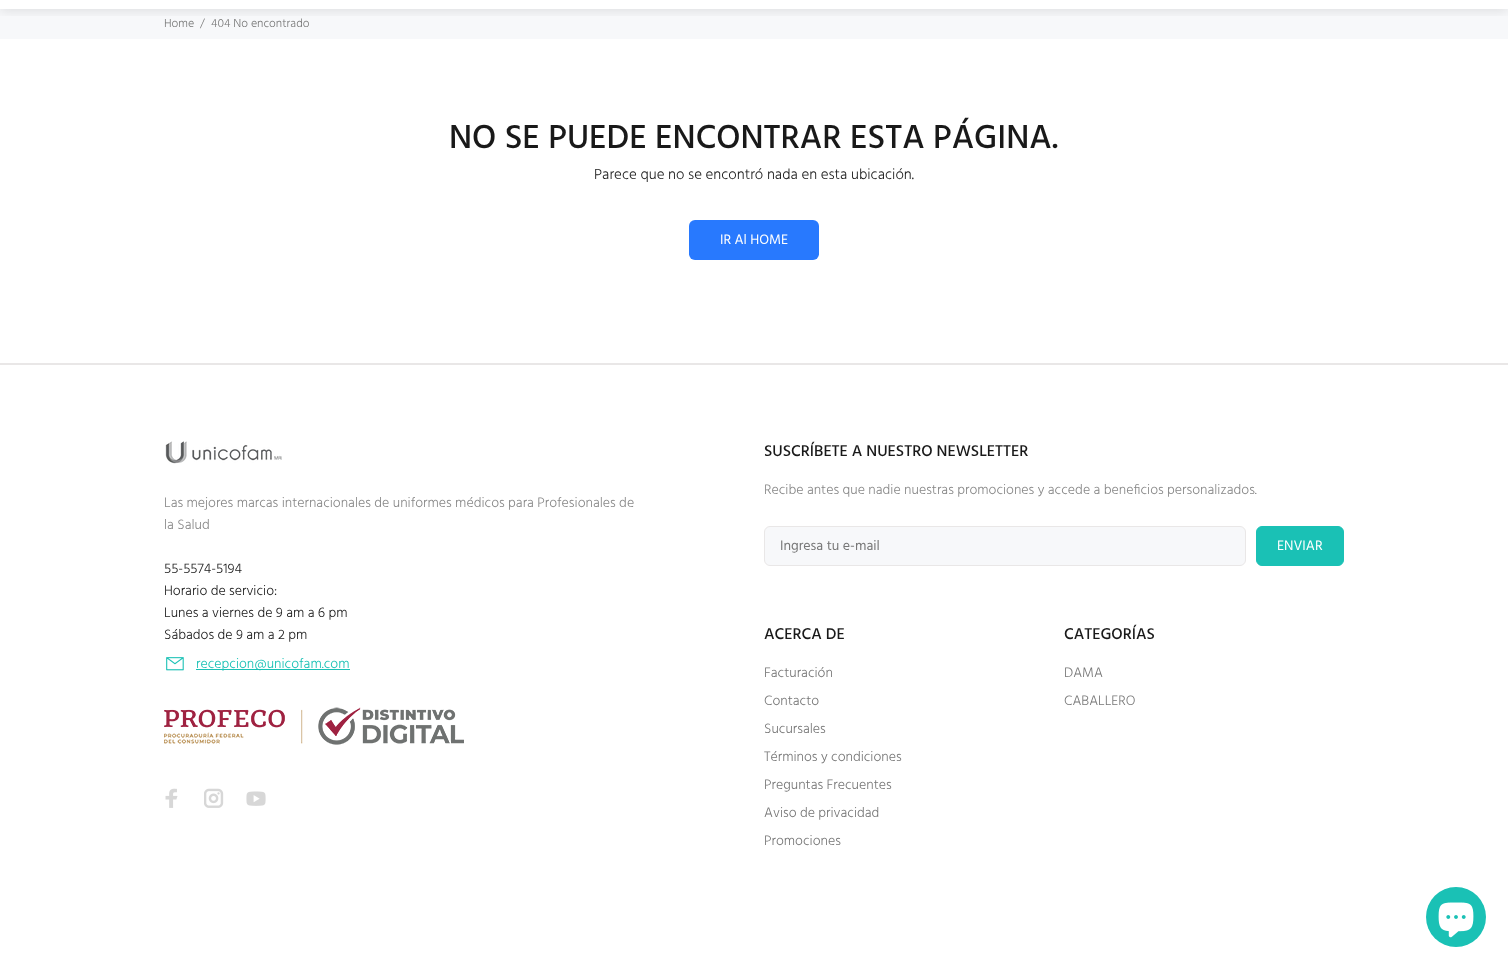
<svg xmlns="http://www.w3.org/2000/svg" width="1508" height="968">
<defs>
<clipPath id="clip1"><rect x="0" y="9" width="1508" height="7"/></clipPath>
</defs>
<rect width="100%" height="100%" fill="#fff"/>
<rect y="9" width="1508" height="30" fill="#f7f8fa"/>
<g clip-path="url(#clip1)">
<rect y="-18" width="1508" height="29" fill="#0000001a" filter="blur(6px)"/>
</g>
<text x="164" y="27" style="font-family:Hind;font-size:12px;font-weight:300;fill:#777">Home</text>
<text x="200" y="27" style="font-family:Hind;font-size:12px;font-weight:300;fill:#777">/</text>
<text x="211" y="27" style="font-family:Hind;font-size:12px;font-weight:300;fill:#777">404 No encontrado</text>
<text x="449" y="148" style="font-family:Hind;font-size:34px;font-weight:500;fill:#191919">NO SE PUEDE ENCONTRAR ESTA PÁGINA.</text>
<text x="594" y="179" style="font-family:Hind;font-size:15px;font-weight:300;fill:#191919">Parece que no se encontró nada en esta ubicación.</text>
<rect x="689" y="220" width="130" height="40" rx="6" fill="#2879fe"/>
<text x="720" y="244" style="font-family:Hind;font-size:14px;fill:#fff">IR Al HOME</text>
<rect y="363" width="1508" height="2" fill="#e9e7e7"/>
<image x="165" y="441" width="117" height="23" href="media/1.png"/>
<text x="164" y="507" style="font-family:Hind;font-size:14px;font-weight:300;fill:#888">Las mejores marcas internacionales de uniformes médicos para Profesionales de</text>
<text x="164" y="529" style="font-family:Hind;font-size:14px;font-weight:300;fill:#888">la Salud</text>
<text x="164" y="573" style="font-family:Hind;font-size:14px;font-weight:300;fill:#191919">55-5574-5194</text>
<text x="164" y="595" style="font-family:Hind;font-size:14px;font-weight:300;fill:#191919">Horario de servicio:</text>
<text x="164" y="617" style="font-family:Hind;font-size:14px;font-weight:300;fill:#191919">Lunes a viernes de 9 am a 6 pm</text>
<text x="164" y="639" style="font-family:Hind;font-size:14px;font-weight:300;fill:#191919">Sábados de 9 am a 2 pm</text>
<image x="166" y="657" width="18" height="14" href="media/2.png"/>
<rect x="196" y="669" width="154" height="1" fill="#1ac1b5"/>
<text x="196" y="668" style="font-family:Hind;font-size:14px;font-weight:300;fill:#1ac1b5">recepcion@unicofam.com</text>
<image x="164" y="707" width="300" height="38" href="media/3.png"/>
<image x="165" y="788" width="13" height="20" href="media/4.png"/>
<image x="204" y="788" width="20" height="20" href="media/5.png"/>
<image x="246" y="791" width="20" height="15" href="media/6.png"/>
<text x="764" y="456" style="font-family:Hind;font-size:16px;font-weight:500;fill:#191919">SUSCRÍBETE A NUESTRO NEWSLETTER</text>
<text x="764" y="494" style="font-family:Hind;font-size:14px;font-weight:300;fill:#888">Recibe antes que nadie nuestras promociones y accede a beneficios personalizados.</text>
<rect x="764.5" y="526.5" width="481" height="39" rx="5.5" fill="#f7f8fa" stroke="#e9e7e7"/>
<text x="780" y="550" style="font-family:Hind;font-size:14px;fill:#777">Ingresa tu e-mail</text>
<rect x="1256.5" y="526.5" width="87" height="39" rx="5.5" fill="#1ac1b5" stroke="#1ac1b5"/>
<text x="1277" y="550" style="font-family:Hind;font-size:14px;fill:#fff">ENVIAR</text>
<text x="764" y="639" style="font-family:Hind;font-size:16px;font-weight:500;fill:#191919">ACERCA DE</text>
<text x="764" y="677" style="font-family:Hind;font-size:14px;font-weight:300;fill:#777">Facturación</text>
<text x="764" y="705" style="font-family:Hind;font-size:14px;font-weight:300;fill:#777">Contacto</text>
<text x="764" y="733" style="font-family:Hind;font-size:14px;font-weight:300;fill:#777">Sucursales</text>
<text x="764" y="761" style="font-family:Hind;font-size:14px;font-weight:300;fill:#777">Términos y condiciones</text>
<text x="764" y="789" style="font-family:Hind;font-size:14px;font-weight:300;fill:#777">Preguntas Frecuentes</text>
<text x="764" y="817" style="font-family:Hind;font-size:14px;font-weight:300;fill:#777">Aviso de privacidad</text>
<text x="764" y="845" style="font-family:Hind;font-size:14px;font-weight:300;fill:#777">Promociones</text>
<text x="1064" y="639" style="font-family:Hind;font-size:16px;font-weight:500;fill:#191919">CATEGORÍAS</text>
<text x="1064" y="677" style="font-family:Hind;font-size:14px;font-weight:300;fill:#777">DAMA</text>
<text x="1064" y="705" style="font-family:Hind;font-size:14px;font-weight:300;fill:#777">CABALLERO</text>
<circle cx="1456" cy="917" r="30" fill="#1ac1b5"/>
<image x="1438" y="902" width="36" height="36" href="media/7.png"/>
</svg>
